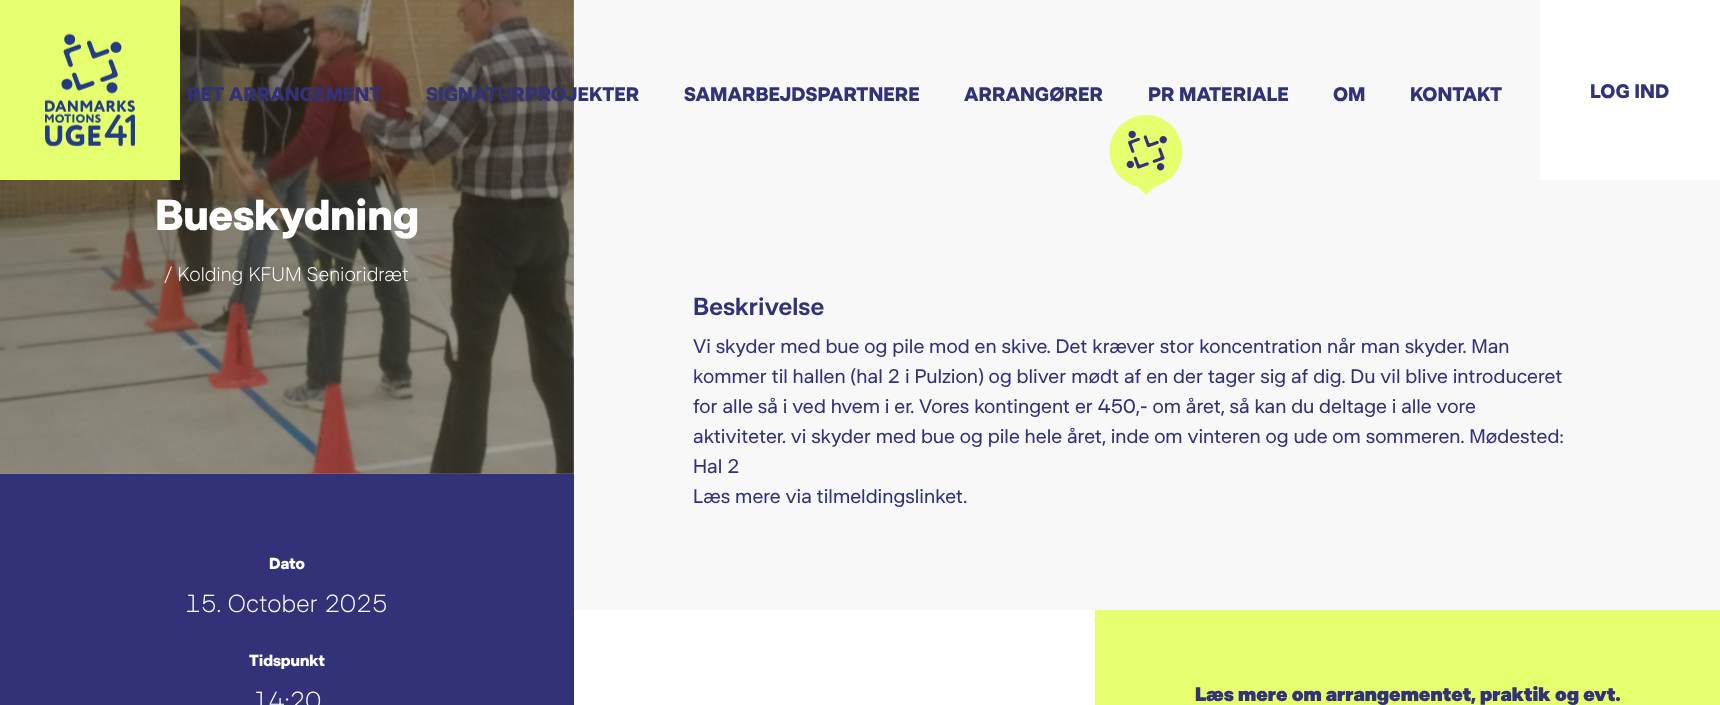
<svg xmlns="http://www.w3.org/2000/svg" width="1720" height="705">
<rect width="100%" height="100%" fill="#f8f8f8"/>
<rect width="574" height="474" fill="#aeaeae"/>
<image x="0" y="0" width="574" height="474" href="media/2.png"/>
<rect width="180" height="180" fill="#e6ff6e"/>
<image x="45" y="33" width="90" height="114" href="media/1.png"/>
<text x="187" y="101" style="font-family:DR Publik;font-size:20px;font-weight:bold;fill:#323278">RET ARRANGEMENT</text>
<text x="426" y="101" style="font-family:DR Publik;font-size:20px;font-weight:bold;fill:#323278">SIGNATURPROJEKTER</text>
<text x="684" y="101" style="font-family:DR Publik;font-size:20px;font-weight:bold;fill:#323278">SAMARBEJDSPARTNERE</text>
<text x="964" y="101" style="font-family:DR Publik;font-size:20px;font-weight:bold;fill:#323278">ARRANGØRER</text>
<text x="1148" y="101" style="font-family:DR Publik;font-size:20px;font-weight:bold;fill:#323278">PR MATERIALE</text>
<text x="1333" y="101" style="font-family:DR Publik;font-size:20px;font-weight:bold;fill:#323278">OM</text>
<text x="1410" y="101" style="font-family:DR Publik;font-size:20px;font-weight:bold;fill:#323278">KONTAKT</text>
<rect x="1540" width="180" height="180" fill="#fff"/>
<text x="1590" y="98" style="font-family:DR Publik;font-size:20px;font-weight:bold;fill:#323278">LOG IND</text>
<text x="155" y="230" style="font-family:DR Publik;font-size:43.75px;font-weight:bold;fill:#fff">Bueskydning</text>
<text x="164" y="281" style="font-family:DR Publik;font-size:20px;font-weight:300;fill:#fff">/ Kolding KFUM Senioridræt</text>
<rect y="474" width="574" height="231" fill="#323278"/>
<text x="269" y="569" style="font-family:DR Publik;font-size:16.25px;font-weight:bold;fill:#fff">Dato</text>
<text x="185" y="612" style="font-family:DR Publik;font-size:25px;font-weight:300;fill:#fff">15. October 2025</text>
<text x="249" y="666" style="font-family:DR Publik;font-size:16.25px;font-weight:bold;fill:#fff">Tidspunkt</text>
<text x="253" y="709" style="font-family:DR Publik;font-size:25px;font-weight:300;fill:#fff">14:20</text>
<image x="1109" y="115" width="74" height="80" href="media/3.png"/>
<text x="693" y="315" style="font-family:DR Publik;font-size:25px;font-weight:600;fill:#323278">Beskrivelse</text>
<text x="693" y="353" style="font-family:DR Publik;font-size:20px;fill:#323278">Vi skyder med bue og pile mod en skive. Det kræver stor koncentration når man skyder. Man</text>
<text x="693" y="383" style="font-family:DR Publik;font-size:20px;fill:#323278">kommer til hallen (hal 2 i Pulzion) og bliver mødt af en der tager sig af dig. Du vil blive introduceret</text>
<text x="693" y="413" style="font-family:DR Publik;font-size:20px;fill:#323278">for alle så i ved hvem i er. Vores kontingent er 450,- om året, så kan du deltage i alle vore</text>
<text x="693" y="443" style="font-family:DR Publik;font-size:20px;fill:#323278">aktiviteter. vi skyder med bue og pile hele året, inde om vinteren og ude om sommeren. Mødested:</text>
<text x="693" y="473" style="font-family:DR Publik;font-size:20px;fill:#323278">Hal 2</text>
<text x="693" y="503" style="font-family:DR Publik;font-size:20px;fill:#323278">Læs mere via tilmeldingslinket.</text>
<rect x="574" y="610" width="521" height="95" fill="#fff"/>
<rect x="1095" y="610" width="625" height="95" fill="#e6ff6e"/>
<text x="1195" y="701" style="font-family:DR Publik;font-size:20px;font-weight:900;fill:#323278">Læs mere om arrangementet, praktik og evt.</text>
</svg>
